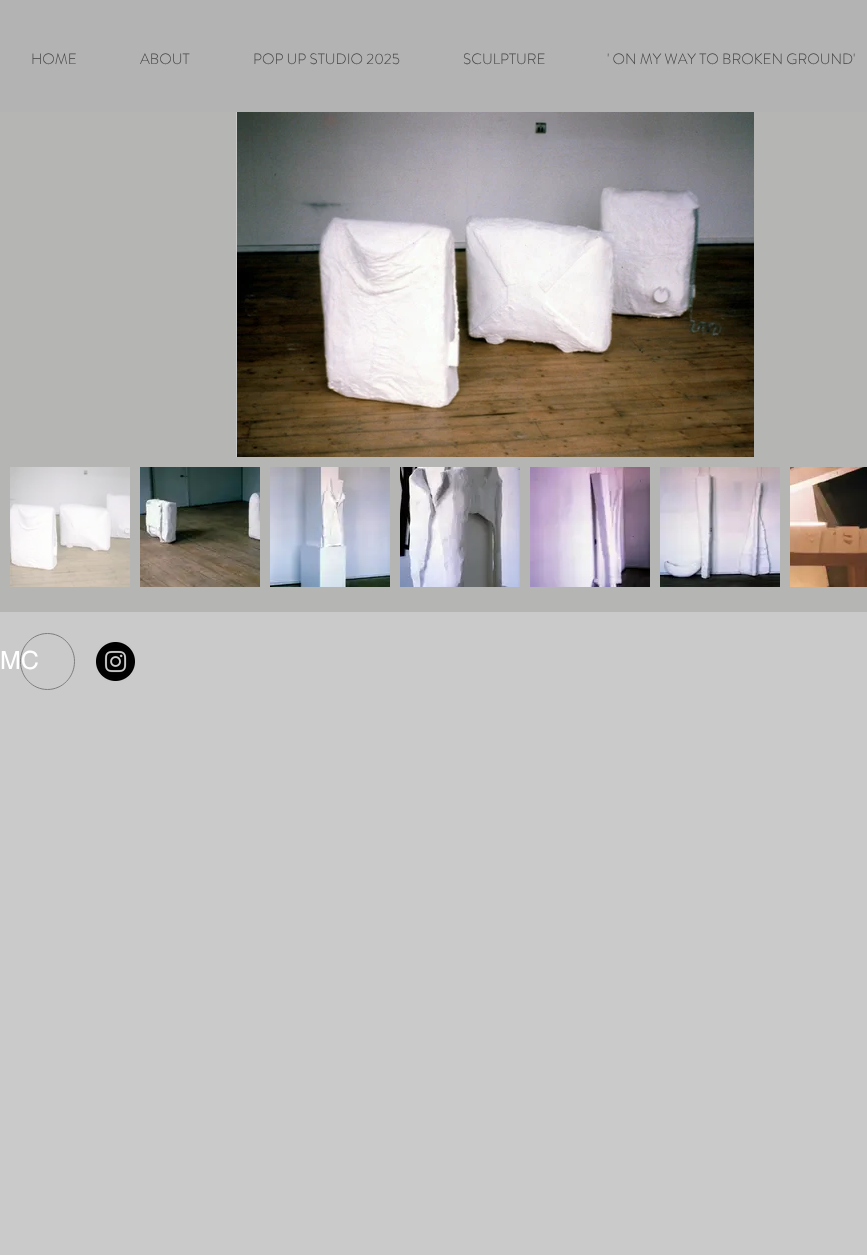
<svg xmlns="http://www.w3.org/2000/svg" width="867" height="1255">
<rect width="100%" height="100%" fill="#cacaca"/>
<rect width="867" height="112" fill="#b3b3b3"/>
<text x="31" y="64" style="font-family:'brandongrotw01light';font-size:15px;font-weight:300;fill:#444">HOME</text>
<text x="140" y="64" style="font-family:'brandongrotw01light';font-size:15px;font-weight:300;fill:#444">ABOUT</text>
<text x="253" y="64" style="font-family:'brandongrotw01light';font-size:15px;font-weight:300;fill:#444">POP UP STUDIO 2025</text>
<text x="463" y="64" style="font-family:'brandongrotw01light';font-size:15px;font-weight:300;fill:#444">SCULPTURE</text>
<text x="607" y="64" style="font-family:'brandongrotw01light';font-size:15px;font-weight:300;fill:#444">' ON MY WAY TO BROKEN GROUND'</text>
<rect y="112" width="867" height="500" fill="#b5b5b4"/>
<rect x="236" y="112" width="1" height="345" fill="#cacaca"/>
<image x="237" y="112" width="517" height="345" href="media/1.png"/>
<image x="10" y="467" width="120" height="120" href="media/2.png"/>
<image x="140" y="467" width="120" height="120" href="media/3.png"/>
<image x="270" y="467" width="120" height="120" href="media/4.png"/>
<image x="400" y="467" width="120" height="120" href="media/5.png"/>
<image x="530" y="467" width="120" height="120" href="media/6.png"/>
<image x="660" y="467" width="120" height="120" href="media/7.png"/>
<image x="790" y="467" width="77" height="120" href="media/8.png"/>
<path d="M47.5 633.5c15 0 27 12.5 27 28c0 15.5-12 28-27 28c-15 0-27-12.5-27-28c0-15.5 12-28 27-28z" fill="none" stroke="#7f7e7e"/>
<text x="0" y="669" style="font-family:helvetica;font-size:25px;fill:#fff">MC</text>
<image x="96" y="642" width="39" height="39" href="media/9.png"/>
</svg>
